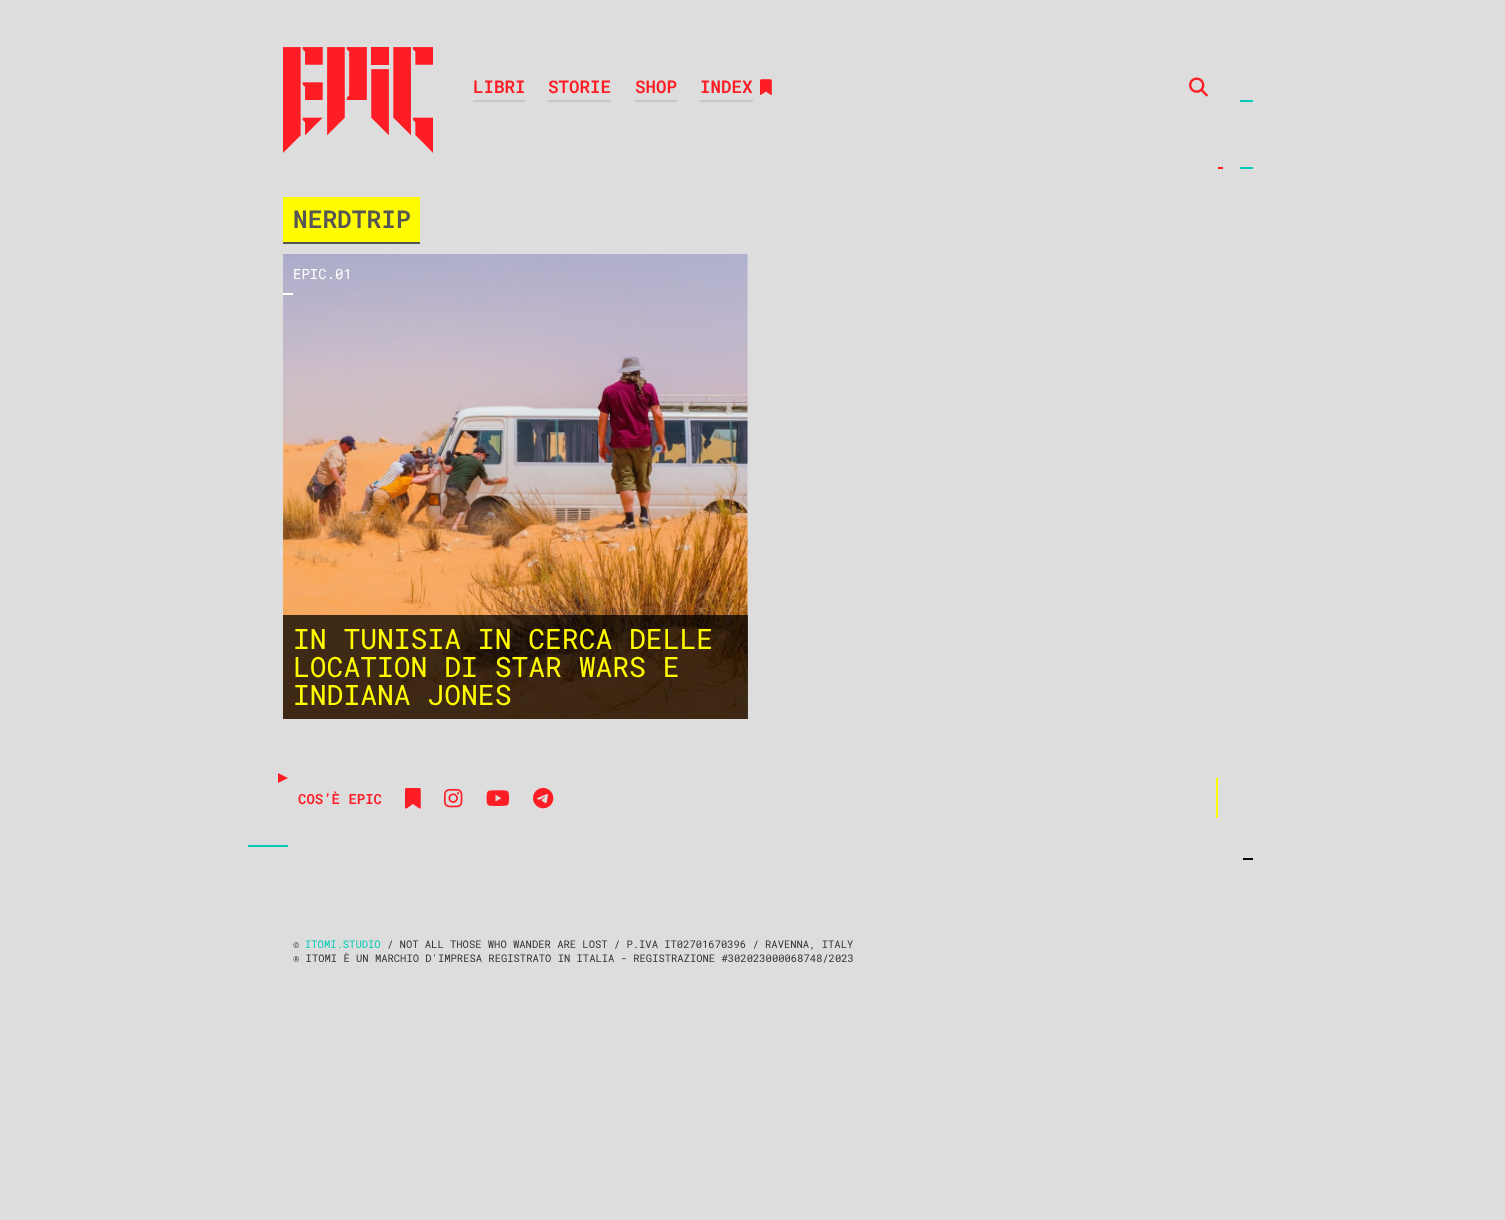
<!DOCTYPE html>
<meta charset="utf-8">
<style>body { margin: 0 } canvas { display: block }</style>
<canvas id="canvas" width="1505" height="1220"></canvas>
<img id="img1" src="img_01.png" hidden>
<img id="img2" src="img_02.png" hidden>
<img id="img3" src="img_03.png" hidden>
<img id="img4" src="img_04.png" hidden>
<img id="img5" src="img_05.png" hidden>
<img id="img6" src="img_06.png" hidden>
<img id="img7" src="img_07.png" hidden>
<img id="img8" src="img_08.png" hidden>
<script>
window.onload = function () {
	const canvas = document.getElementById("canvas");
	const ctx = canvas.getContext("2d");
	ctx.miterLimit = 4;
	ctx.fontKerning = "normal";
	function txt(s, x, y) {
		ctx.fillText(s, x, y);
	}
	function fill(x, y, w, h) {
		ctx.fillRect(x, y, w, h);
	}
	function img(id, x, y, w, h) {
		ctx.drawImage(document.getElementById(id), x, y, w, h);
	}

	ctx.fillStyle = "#DDDDDD";
	fill(0, 0, 1505, 1220);
	img("img1", 283, 47, 150, 106);
	ctx.fillStyle = "#C7C7C7";
	fill(473, 100, 52, 2);
	fill(548, 100, 63, 2);
	fill(635, 100, 42, 2);
	fill(700, 100, 53, 2);
	img("img2", 760, 79, 12, 16);
	img("img3", 1189, 77, 19, 20);
	ctx.fillStyle = "#01CCB7";
	fill(1240, 100, 13, 2);
	fill(1240, 167, 13, 2);
	ctx.fillStyle = "#FF1D25";
	fill(1218, 167, 5, 2);
	ctx.fillStyle = "#FFFB00";
	fill(283, 197, 137, 45);
	ctx.fillStyle = "#555555";
	fill(283, 242, 137, 2);
	img("img4", 283, 254, 465, 465);
	ctx.fillStyle = "#FFFFFF";
	fill(283, 293, 10, 2);
	ctx.fillStyle = "rgba(0, 0, 0, 0.75)";
	fill(283, 615, 465, 104);
	ctx.fillStyle = "#FF1D25";
	ctx.beginPath();
	ctx.moveTo(278, 783);
	ctx.lineTo(278, 773);
	ctx.lineTo(288, 778);
	ctx.closePath();
	ctx.fill();
	img("img5", 405, 788, 16, 21);
	img("img6", 444, 788, 19, 20);
	img("img7", 486, 790, 23, 16);
	img("img8", 533, 788, 21, 21);
	ctx.fillStyle = "#01CCB7";
	fill(248, 845, 40, 2);
	ctx.fillStyle = "#FFFB00";
	fill(1216, 778, 2, 40);
	ctx.fillStyle = "#000000";
	fill(1243, 858, 10, 2);
	ctx.font = "600 17.5px Roboto Mono";
	ctx.fillStyle = "#FF1D25";
	txt("LIBRI", 473, 93);
	txt("STORIE", 548, 93);
	txt("SHOP", 635, 93);
	txt("INDEX", 700, 93);
	ctx.font = "600 24.5px Roboto Mono";
	ctx.fillStyle = "#555555";
	txt("NERDTRIP", 293, 228);
	ctx.font = "14px Roboto Mono";
	ctx.fillStyle = "#FFFFFF";
	txt("EPIC.01", 293, 279);
	ctx.font = "28px Roboto Mono";
	ctx.fillStyle = "#FFFB00";
	txt("IN TUNISIA IN CERCA DELLE", 293, 649);
	txt("LOCATION DI STAR WARS E", 293, 677);
	txt("INDIANA JONES", 293, 705);
	ctx.font = "600 14px Roboto Mono";
	ctx.fillStyle = "#FF1D25";
	txt("COS’È EPIC", 298, 804);
	ctx.font = "10.5px Roboto Mono";
	ctx.fillStyle = "#333333";
	txt("©", 293, 948);
	ctx.fillStyle = "#01CCB7";
	txt("ITOMI.STUDIO", 305, 948);
	ctx.fillStyle = "#333333";
	txt("/ NOT ALL THOSE WHO WANDER ARE LOST / P.IVA IT02701670396 / RAVENNA, ITALY", 387, 948);
	txt("® ITOMI È UN MARCHIO D'IMPRESA REGISTRATO IN ITALIA - REGISTRAZIONE #302023000068748/2023", 293, 962);
};
</script>
